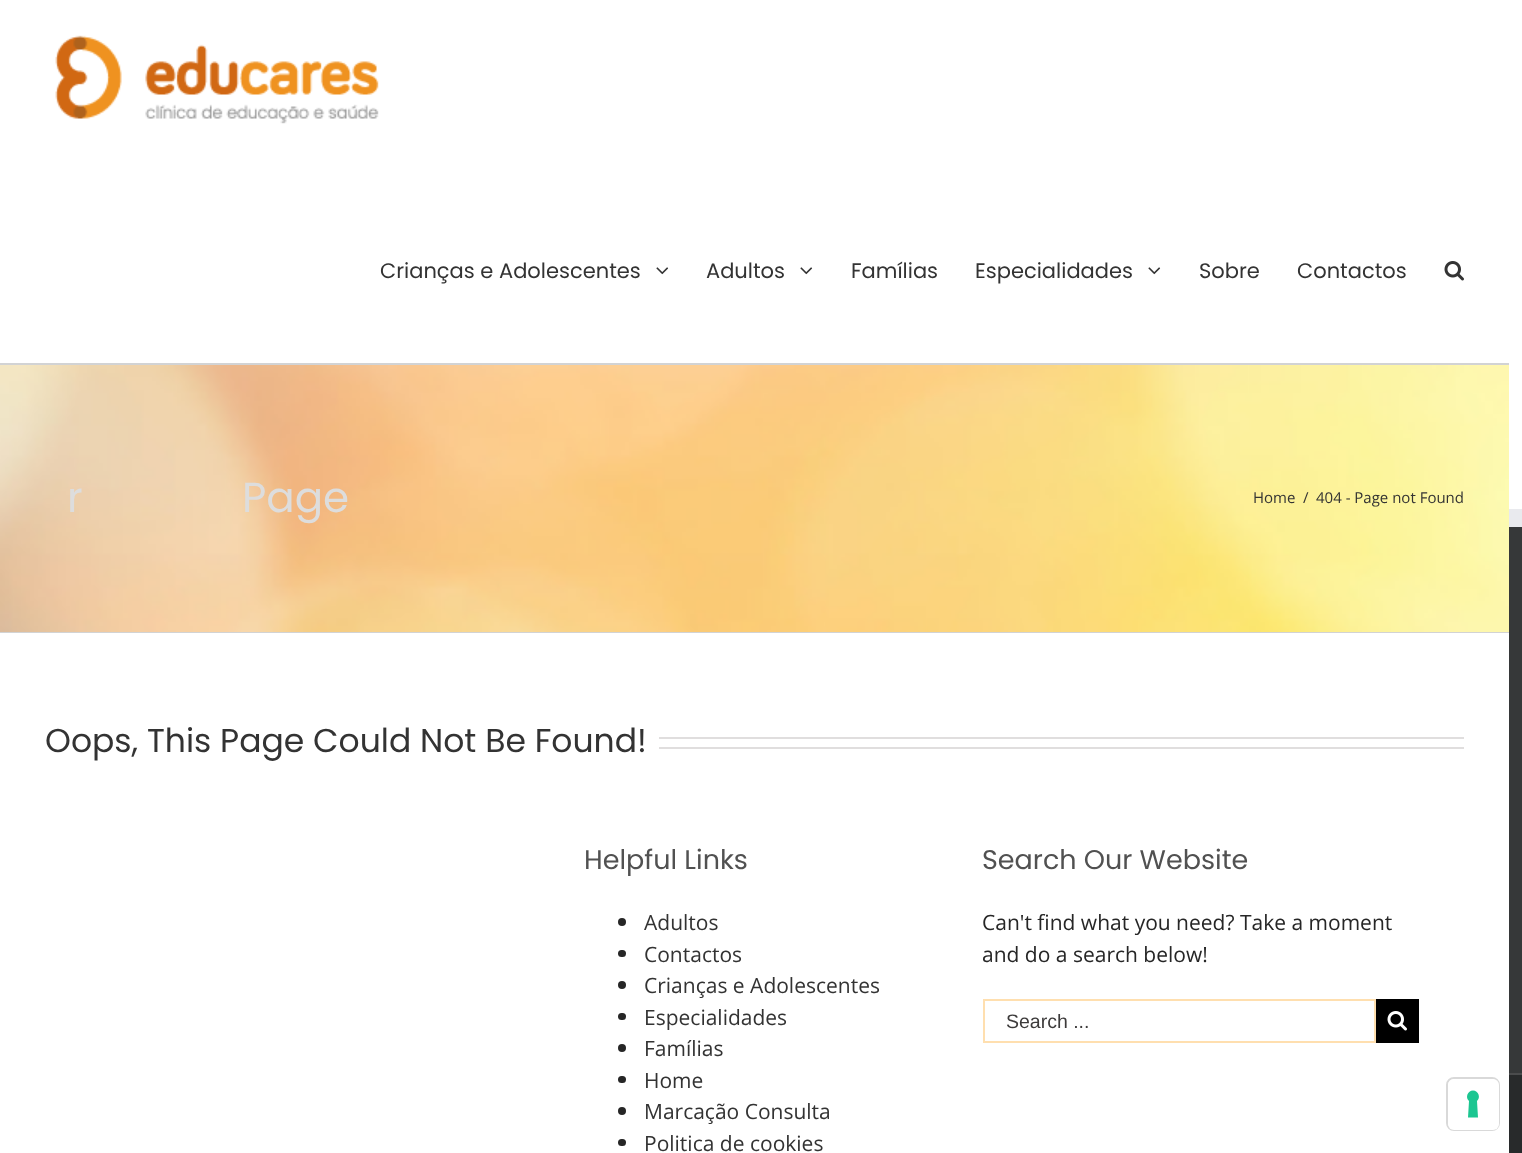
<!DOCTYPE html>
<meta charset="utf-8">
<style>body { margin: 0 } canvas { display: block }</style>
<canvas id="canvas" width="1522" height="1153"></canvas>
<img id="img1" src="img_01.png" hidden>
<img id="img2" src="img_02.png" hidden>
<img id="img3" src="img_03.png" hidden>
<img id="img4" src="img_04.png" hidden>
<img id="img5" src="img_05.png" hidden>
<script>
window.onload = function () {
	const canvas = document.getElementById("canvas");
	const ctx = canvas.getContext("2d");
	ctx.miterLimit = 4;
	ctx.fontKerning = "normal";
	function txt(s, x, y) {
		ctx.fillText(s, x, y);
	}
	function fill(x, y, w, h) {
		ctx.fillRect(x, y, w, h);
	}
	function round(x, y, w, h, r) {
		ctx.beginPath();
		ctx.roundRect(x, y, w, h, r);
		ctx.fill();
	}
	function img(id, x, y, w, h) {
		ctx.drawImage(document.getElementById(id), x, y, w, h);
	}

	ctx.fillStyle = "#FFFFFF";
	fill(0, 0, 1522, 1153);
	img("img1", 55, 35, 324, 89);
	img("img2", 656, 267, 13, 8);
	img("img2", 800, 267, 13, 8);
	img("img2", 1148, 267, 13, 8);
	img("img3", 1444, 261, 20, 20);
	img("img4", 0, 365, 1509, 267);
	ctx.fillStyle = "#D2D3D4";
	fill(0, 363, 1509, 2);
	fill(0, 632, 1509, 1);
	ctx.fillStyle = "#E0DEDE";
	fill(659, 737, 805, 2);
	fill(659, 747, 805, 2);
	ctx.fillStyle = "#262626";
	ctx.beginPath();
	ctx.arc(622, 922, 4, 0, Math.PI * 2);
	ctx.fill();
	round(618, 950, 8, 7, 3.5);
	ctx.beginPath();
	ctx.arc(622, 985, 4, 0, Math.PI * 2);
	ctx.fill();
	round(618, 1013, 8, 7, 3.5);
	ctx.beginPath();
	ctx.arc(622, 1048, 4, 0, Math.PI * 2);
	ctx.fill();
	round(618, 1076, 8, 7, 3.5);
	ctx.beginPath();
	ctx.arc(622, 1111, 4, 0, Math.PI * 2);
	ctx.fill();
	round(618, 1139, 8, 7, 3.5);
	ctx.strokeStyle = "#FFDFAF";
	ctx.lineWidth = 2;
	ctx.strokeRect(984, 1000, 391, 42);
	ctx.fillStyle = "#000000";
	fill(1376, 999, 43, 44);
	img("img5", 1387, 1011, 20, 20);
	ctx.fillStyle = "#363839";
	fill(1509, 527, 13, 546);
	ctx.fillStyle = "#E9EAEE";
	fill(1509, 509, 13, 18);
	ctx.fillStyle = "#282A2B";
	fill(1509, 1075, 13, 78);
	ctx.fillStyle = "#4B4C4D";
	fill(1509, 1073, 13, 2);
	ctx.beginPath();
	ctx.roundRect(1447, 1078, 52, 52, 7);
	ctx.strokeStyle = "#D9D9D9";
	ctx.stroke();
	ctx.fillStyle = "#FFFFFF";
	round(1448, 1079, 51, 51, 6);
	ctx.fillStyle = "#1CC691";
	ctx.beginPath();
	ctx.moveTo(1473, 1090.5);
	ctx.bezierCurveTo(1478.5, 1090.5, 1481, 1097.5, 1477, 1101);
	ctx.lineTo(1478, 1117.5);
	ctx.lineTo(1468, 1117.5);
	ctx.lineTo(1469, 1101);
	ctx.bezierCurveTo(1465, 1097.5, 1467.5, 1090.5, 1473, 1090.5);
	ctx.closePath();
	ctx.fill("evenodd");
	ctx.font = "21px Poppins";
	ctx.fillStyle = "#333333";
	txt("Crianças e Adolescentes", 380, 278);
	txt("Adultos", 706, 278);
	txt("Famílias", 851, 278);
	txt("Especialidades", 975, 278);
	txt("Sobre", 1199, 278);
	txt("Contactos", 1297, 278);
	ctx.font = "42px Poppins";
	ctx.fillStyle = "#DDDDDD";
	txt("r", 67, 512);
	txt("Page", 242, 512);
	ctx.font = "15px Open Sans";
	ctx.fillStyle = "#333333";
	txt("Home", 1253, 503);
	txt("/", 1303, 503);
	txt("404 - Page not Found", 1316, 503);
	ctx.font = "33px Poppins";
	txt("Oops, This Page Could Not Be Found!", 45, 752);
	ctx.font = "27px Poppins";
	ctx.fillStyle = "#515151";
	txt("Helpful Links", 584, 869);
	ctx.font = "21px Open Sans";
	ctx.fillStyle = "#333333";
	txt("Adultos", 644, 930);
	txt("Contactos", 644, 962);
	txt("Crianças e Adolescentes", 644, 993);
	txt("Especialidades", 644, 1025);
	txt("Famílias", 644, 1056);
	txt("Home", 644, 1088);
	txt("Marcação Consulta", 644, 1119);
	txt("Politica de cookies", 644, 1151);
	ctx.font = "27px Poppins";
	ctx.fillStyle = "#515151";
	txt("Search Our Website", 982, 869);
	ctx.font = "21px Open Sans";
	ctx.fillStyle = "#262626";
	txt("Can't find what you need? Take a moment", 982, 930);
	txt("and do a search below!", 982, 962);
	ctx.font = "19.5px Liberation Sans";
	ctx.fillStyle = "#3D3B3B";
	txt("Search ...", 1006, 1028);
};
</script>
